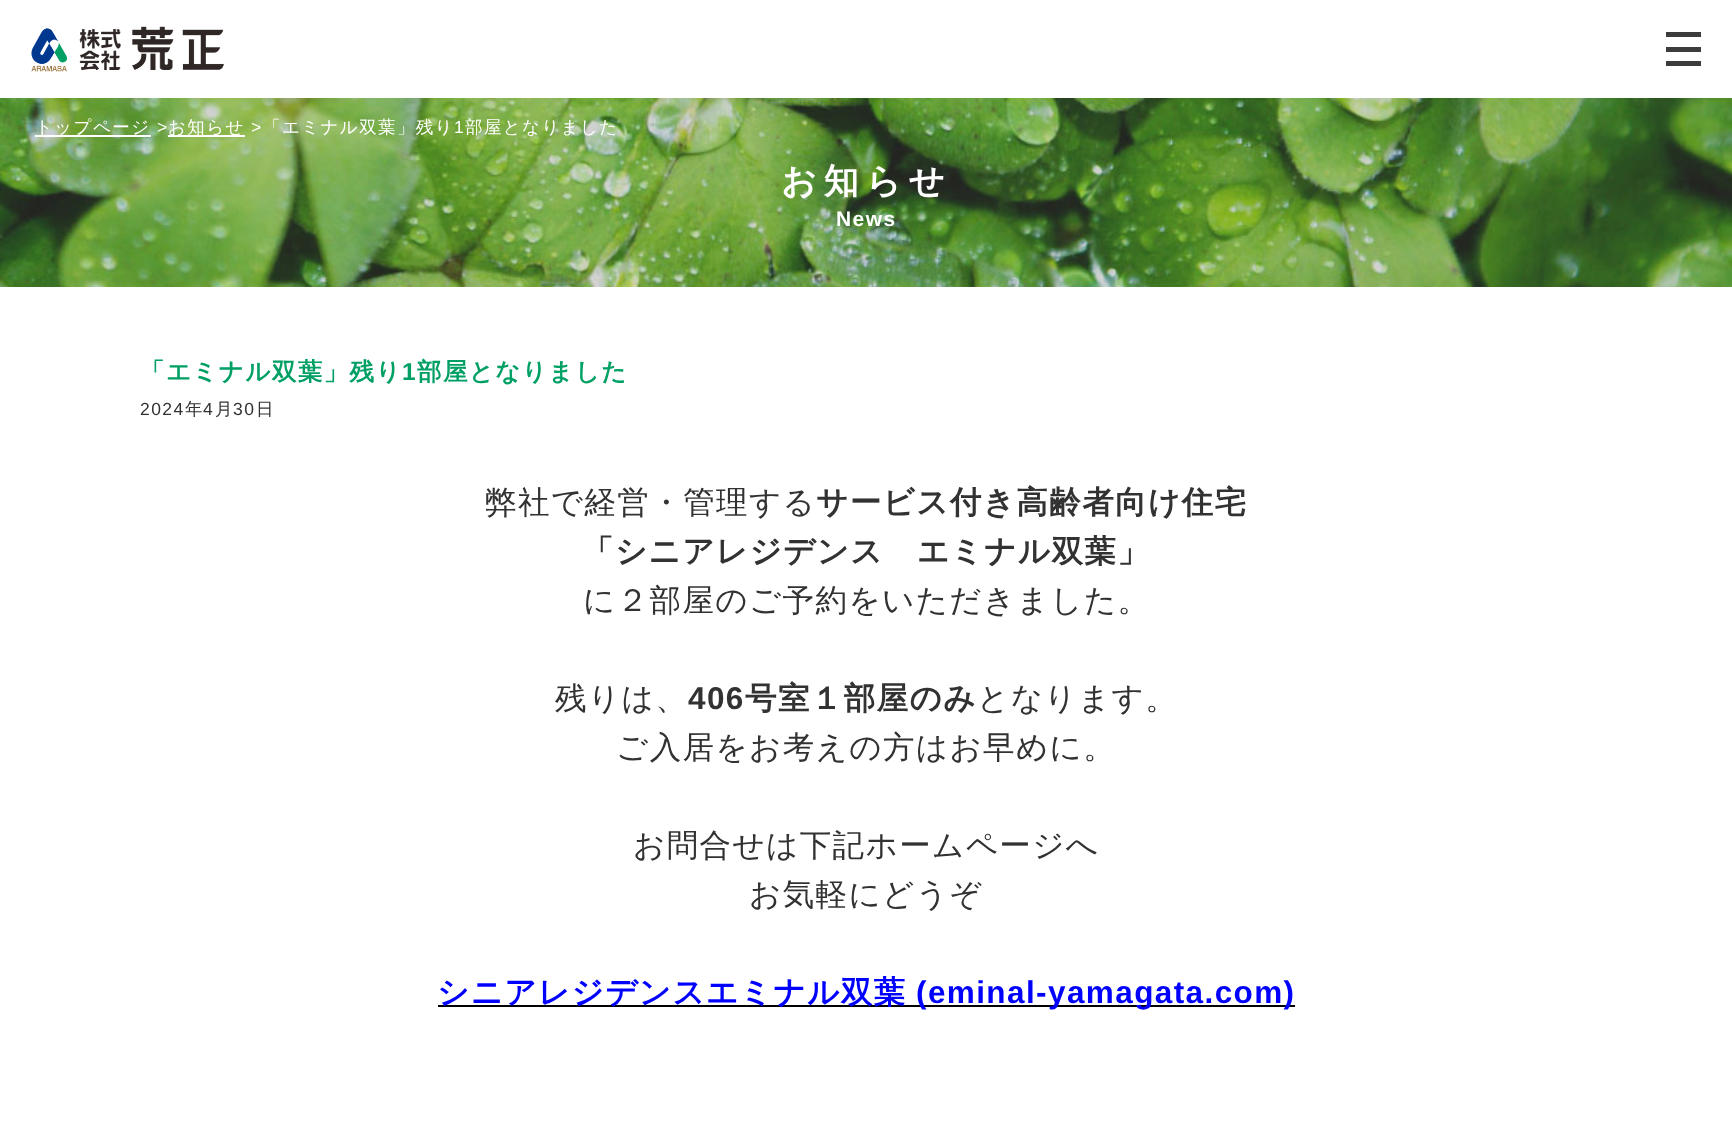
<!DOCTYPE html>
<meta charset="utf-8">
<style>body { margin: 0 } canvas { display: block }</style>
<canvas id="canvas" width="1732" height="1124"></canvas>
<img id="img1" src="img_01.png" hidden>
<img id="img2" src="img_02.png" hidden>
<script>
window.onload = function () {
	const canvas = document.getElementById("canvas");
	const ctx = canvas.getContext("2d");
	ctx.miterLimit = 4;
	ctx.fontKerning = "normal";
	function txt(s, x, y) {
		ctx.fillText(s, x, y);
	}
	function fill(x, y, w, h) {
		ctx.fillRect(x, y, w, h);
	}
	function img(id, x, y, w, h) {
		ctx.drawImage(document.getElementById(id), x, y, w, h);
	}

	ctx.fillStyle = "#FFFFFF";
	fill(0, 0, 1732, 1124);
	img("img1", 31, 26, 193, 46);
	ctx.fillStyle = "#3C3C3C";
	fill(1666, 32, 35, 5);
	fill(1666, 47, 35, 5);
	fill(1666, 61, 35, 5);
	img("img2", 0, 98, 1732, 189);
	ctx.fillStyle = "#FFFFFF";
	fill(35, 135, 116, 2);
	fill(168, 135, 77, 2);
	ctx.fillStyle = "#000000";
	fill(438, 1005, 857, 2);
	ctx.letterSpacing = "1.4px";
	ctx.font = "500 17.5px WenQuanYi Zen Hei";
	ctx.fillStyle = "#FFFFFF";
	txt("トップページ", 35, 133);
	ctx.font = "17.5px Liberation Sans";
	txt(">", 157, 133);
	ctx.font = "500 17.5px WenQuanYi Zen Hei";
	txt("お知らせ", 168, 133);
	ctx.font = "17.5px Liberation Sans";
	txt(">", 251, 133);
	ctx.font = "500 17.5px WenQuanYi Zen Hei";
	txt("「エミナル双葉」残り", 263, 133);
	ctx.font = "17.5px Liberation Sans";
	txt("1", 454, 133);
	ctx.font = "500 17.5px WenQuanYi Zen Hei";
	txt("部屋となりました", 465, 133);
	ctx.letterSpacing = "7px";
	ctx.font = "bold 35px WenQuanYi Zen Hei";
	txt("お知らせ", 781, 193);
	ctx.letterSpacing = "1.4px";
	ctx.font = "bold 21px Liberation Sans";
	txt("News", 836, 226);
	ctx.font = "bold 24.5px WenQuanYi Zen Hei";
	ctx.fillStyle = "#00A064";
	txt("「エミナル双葉」残り", 140, 380);
	ctx.font = "bold 24.5px Liberation Sans";
	txt("1", 402, 380);
	ctx.font = "bold 24.5px WenQuanYi Zen Hei";
	txt("部屋となりました", 417, 380);
	ctx.font = "17.5px Liberation Sans";
	ctx.fillStyle = "#323232";
	txt("2024", 140, 415);
	ctx.font = "500 17.5px WenQuanYi Zen Hei";
	txt("年", 185, 415);
	ctx.font = "17.5px Liberation Sans";
	txt("4", 203, 415);
	ctx.font = "500 17.5px WenQuanYi Zen Hei";
	txt("月", 215, 415);
	ctx.font = "17.5px Liberation Sans";
	txt("30", 233, 415);
	ctx.font = "500 17.5px WenQuanYi Zen Hei";
	txt("日", 256, 415);
	ctx.font = "500 31.5px WenQuanYi Zen Hei";
	txt("弊社で経営・管理する", 485, 513);
	ctx.font = "bold 31.5px WenQuanYi Zen Hei";
	txt("サービス付き高齢者向け住宅", 816, 513);
	txt("「シニアレジデンス　エミナル双葉」", 582, 562);
	ctx.font = "500 31.5px WenQuanYi Zen Hei";
	txt("に２部屋のご予約をいただきました。", 583, 611);
	txt("残りは、", 555, 709);
	ctx.font = "bold 31.5px Liberation Sans";
	txt("406", 688, 709);
	ctx.font = "bold 31.5px WenQuanYi Zen Hei";
	txt("号室１部屋のみ", 745, 709);
	ctx.font = "500 31.5px WenQuanYi Zen Hei";
	txt("となります。", 977, 709);
	txt("ご入居をお考えの方はお早めに。", 616, 758);
	txt("お問合せは下記ホームページへ", 633, 856);
	txt("お気軽にどうぞ", 749, 905);
	ctx.font = "bold 31.5px WenQuanYi Zen Hei";
	ctx.fillStyle = "#0000FF";
	txt("シニアレジデンスエミナル双葉", 437, 1003);
	ctx.font = "bold 31.5px Liberation Sans";
	txt("(eminal-yamagata.com)", 916, 1003);
};
</script>
